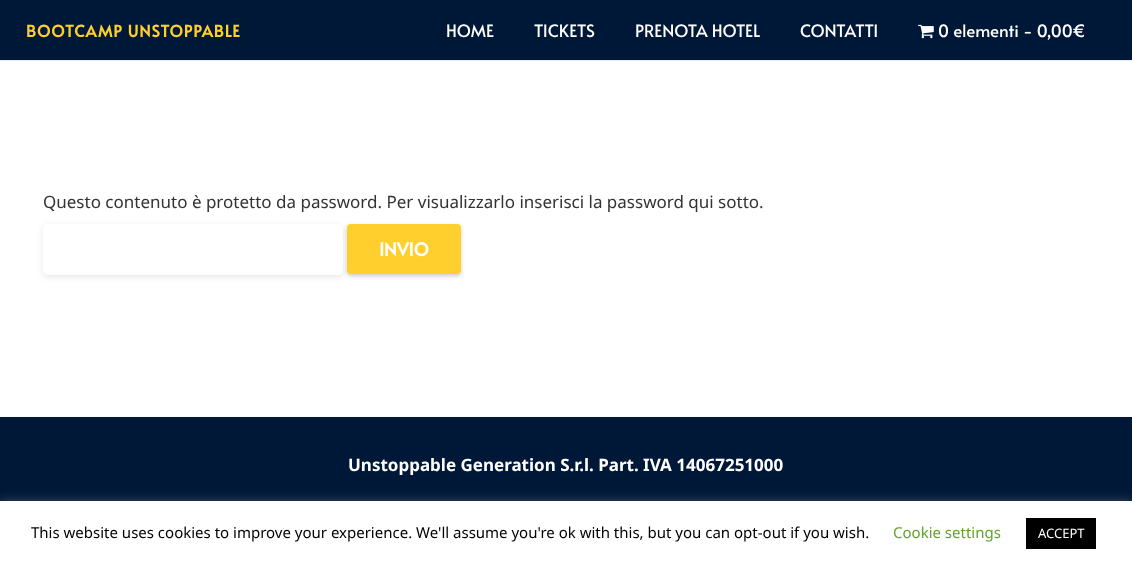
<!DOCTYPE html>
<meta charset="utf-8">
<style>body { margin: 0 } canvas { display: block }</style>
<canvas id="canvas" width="1132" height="566"></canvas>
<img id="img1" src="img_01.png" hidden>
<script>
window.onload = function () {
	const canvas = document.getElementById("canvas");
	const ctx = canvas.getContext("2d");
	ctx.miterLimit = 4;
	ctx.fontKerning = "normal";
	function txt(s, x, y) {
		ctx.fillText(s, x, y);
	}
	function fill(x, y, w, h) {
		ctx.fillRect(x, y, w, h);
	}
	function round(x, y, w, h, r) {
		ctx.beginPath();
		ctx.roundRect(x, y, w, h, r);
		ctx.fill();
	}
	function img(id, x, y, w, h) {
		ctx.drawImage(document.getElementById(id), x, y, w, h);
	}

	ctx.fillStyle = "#FFFFFF";
	fill(0, 0, 1132, 566);
	ctx.fillStyle = "#EBEBEB";
	fill(0, 60, 1132, 1);
	ctx.fillStyle = "#001838";
	fill(0, 0, 1132, 60);
	img("img1", 918, 24, 16, 15);
	ctx.fillStyle = "rgba(0, 0, 0, 0.1)";
	ctx.filter = "blur(3px)";
	ctx.beginPath();
	ctx.roundRect(43, 226, 300, 51, 5);
	ctx.fill();
	ctx.filter = "none";
	ctx.fillStyle = "#FFFFFF";
	round(43, 224, 300, 51, 5);
	ctx.fillStyle = "rgba(0, 0, 0, 0.2)";
	ctx.filter = "blur(2px)";
	ctx.beginPath();
	ctx.roundRect(347, 226, 114, 50, 4);
	ctx.fill();
	ctx.filter = "none";
	ctx.fillStyle = "#FFCF2D";
	round(347, 224, 114, 50, 4);
	ctx.fillStyle = "#001838";
	fill(0, 417, 1132, 84);
	ctx.fillStyle = "rgba(172, 171, 171, 0.3)";
	ctx.filter = "blur(5px)";
	ctx.beginPath();
	ctx.rect(0, 500, 1132, 65);
	ctx.fill();
	ctx.filter = "none";
	ctx.fillStyle = "#FFFFFF";
	fill(0, 501, 1132, 65);
	ctx.fillStyle = "#000000";
	fill(1026, 518, 70, 31);
	ctx.letterSpacing = "1px";
	ctx.font = "bold 16px Alata";
	ctx.fillStyle = "#FFCF2D";
	txt("BOOTCAMP UNSTOPPABLE", 26, 37);
	ctx.letterSpacing = "0px";
	ctx.font = "17px Alata";
	ctx.fillStyle = "#FFFFFF";
	txt("HOME", 446, 37);
	txt("TICKETS", 534, 37);
	txt("PRENOTA HOTEL", 635, 37);
	txt("CONTATTI", 800, 37);
	txt("0 elementi - 0,00€", 938, 37);
	ctx.font = "17px Noto Sans";
	ctx.fillStyle = "#333333";
	txt("Questo contenuto è protetto da password. Per visualizzarlo inserisci la password qui sotto.", 43, 208);
	ctx.font = "bold 18px Alata";
	ctx.fillStyle = "#FFFFFF";
	txt("INVIO", 379, 256);
	ctx.font = "bold 17px Noto Sans";
	txt("Unstoppable Generation S.r.l. Part. IVA 14067251000", 348, 471);
	ctx.font = "15px Noto Sans";
	ctx.fillStyle = "#000000";
	txt("This website uses cookies to improve your experience. We'll assume you're ok with this, but you can opt-out if you wish.", 31, 538);
	ctx.fillStyle = "#62A329";
	txt("Cookie settings", 893, 538);
	ctx.font = "13px Noto Sans";
	ctx.fillStyle = "#FFFFFF";
	txt("ACCEPT", 1038, 538);
};
</script>
